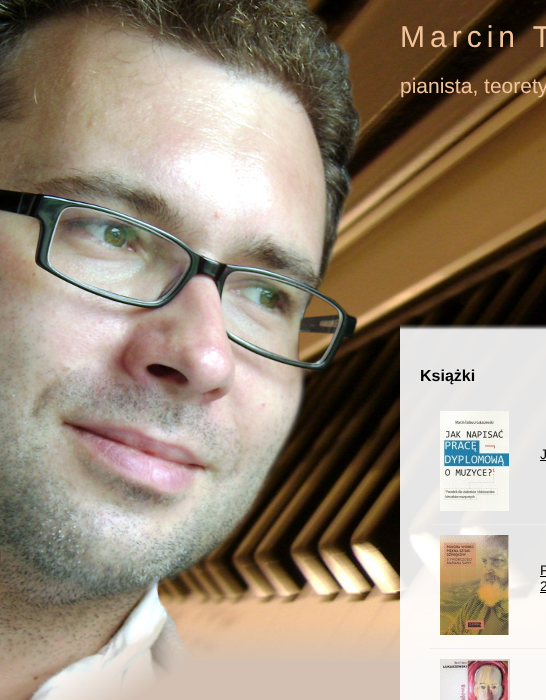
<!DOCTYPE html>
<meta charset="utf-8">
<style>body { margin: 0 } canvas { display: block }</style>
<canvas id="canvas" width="546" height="700"></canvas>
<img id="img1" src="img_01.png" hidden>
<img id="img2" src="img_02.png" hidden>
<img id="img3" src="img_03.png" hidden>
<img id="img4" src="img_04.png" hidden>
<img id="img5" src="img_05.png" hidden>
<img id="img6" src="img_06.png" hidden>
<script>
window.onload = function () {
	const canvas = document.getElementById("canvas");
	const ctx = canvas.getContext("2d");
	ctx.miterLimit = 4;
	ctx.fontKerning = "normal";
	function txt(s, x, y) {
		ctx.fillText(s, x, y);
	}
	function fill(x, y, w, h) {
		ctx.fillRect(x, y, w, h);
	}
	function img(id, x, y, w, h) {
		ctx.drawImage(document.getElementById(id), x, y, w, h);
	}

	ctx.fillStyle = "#D3C0B2";
	fill(0, 0, 546, 700);
	img("img1", 0, 0, 546, 661);
	img("img2", 0, 0, 363, 700);
	img("img3", 400, 324, 146, 7);
	ctx.fillStyle = "rgba(255, 255, 255, 0.9)";
	fill(400, 331, 146, 369);
	ctx.fillStyle = "#EEEEEE";
	fill(430, 524, 116, 1);
	img("img4", 440, 411, 69, 100);
	ctx.fillStyle = "#000000";
	fill(540, 460, 6, 1);
	ctx.fillStyle = "#EEEEEE";
	fill(430, 648, 116, 1);
	img("img5", 440, 535, 69, 100);
	ctx.fillStyle = "#000000";
	fill(540, 576, 6, 1);
	fill(540, 592, 6, 1);
	img("img6", 440, 659, 70, 41);
	ctx.letterSpacing = "5px";
	ctx.font = "30px Liberation Sans";
	ctx.fillStyle = "#F1C49B";
	txt("Marcin T", 400, 47);
	ctx.letterSpacing = "0px";
	ctx.font = "21px Liberation Sans";
	txt("pianista, teorety", 400, 93);
	ctx.font = "bold 16px Liberation Sans";
	ctx.fillStyle = "#000000";
	txt("Książki", 420, 381);
	ctx.font = "14px Liberation Sans";
	txt("J", 540, 459);
	txt("P", 540, 575);
	txt("2", 540, 591);
};
</script>
